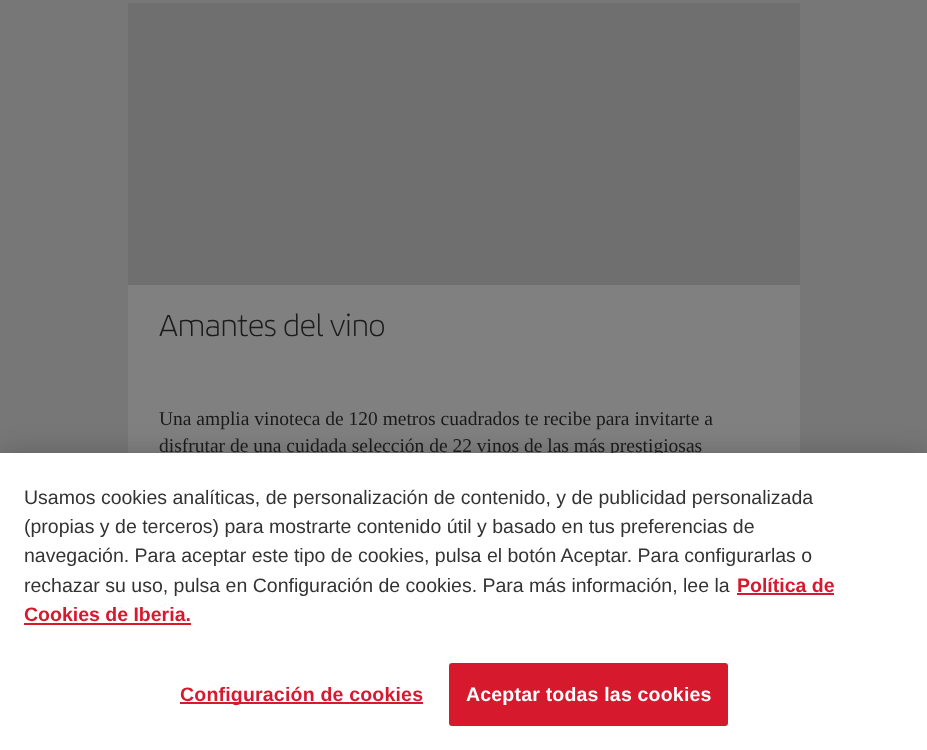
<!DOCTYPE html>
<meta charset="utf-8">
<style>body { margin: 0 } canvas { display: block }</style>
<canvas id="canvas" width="927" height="750"></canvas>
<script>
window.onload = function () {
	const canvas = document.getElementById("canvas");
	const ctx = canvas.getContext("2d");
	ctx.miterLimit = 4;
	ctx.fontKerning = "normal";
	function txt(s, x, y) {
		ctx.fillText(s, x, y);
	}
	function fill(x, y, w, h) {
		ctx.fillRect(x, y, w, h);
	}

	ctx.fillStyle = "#777777";
	fill(0, 0, 927, 750);
	ctx.fillStyle = "#808080";
	fill(128, 285, 672, 168);
	ctx.fillStyle = "#6F6F6F";
	fill(128, 3, 672, 282);
	ctx.fillStyle = "rgba(0, 0, 0, 0.2)";
	ctx.filter = "blur(13.5px)";
	ctx.beginPath();
	ctx.rect(0, 453, 927, 297);
	ctx.fill();
	ctx.filter = "none";
	ctx.font = "33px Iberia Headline";
	ctx.fillStyle = "#1A1A1A";
	txt("Amantes del vino", 159, 336);
	ctx.font = "19.5px Liberation Serif";
	txt("Una amplia vinoteca de 120 metros cuadrados te recibe para invitarte a", 159, 425);
	txt("disfrutar de una cuidada selección de 22 vinos de las más prestigiosas", 159, 452);
	ctx.fillStyle = "#FFFFFF";
	fill(0, 453, 927, 297);
	ctx.font = "19.5px Liberation Sans";
	ctx.fillStyle = "#333333";
	txt("Usamos cookies analíticas, de personalización de contenido, y de publicidad personalizada", 24, 504);
	txt("(propias y de terceros) para mostrarte contenido útil y basado en tus preferencias de", 24, 533);
	txt("navegación. Para aceptar este tipo de cookies, pulsa el botón Aceptar. Para configurarlas o", 24, 562);
	txt("rechazar su uso, pulsa en Configuración de cookies. Para más información, lee la", 24, 592);
	ctx.font = "bold 19.5px Liberation Sans";
	ctx.fillStyle = "#D7192D";
	txt("Política de", 737, 592);
	fill(737, 593, 97, 2);
	txt("Cookies de Iberia.", 24, 621);
	fill(24, 623, 167, 2);
	fill(180, 702, 243, 2);
	ctx.letterSpacing = "0.2px";
	txt("Configuración de cookies", 180, 701);
	ctx.beginPath();
	ctx.roundRect(450, 664, 277, 61, 2);
	ctx.fill();
	ctx.strokeStyle = "#D7192D";
	ctx.lineWidth = 2;
	ctx.stroke();
	ctx.fillStyle = "#FFFFFF";
	txt("Aceptar todas las cookies", 466, 701);
};
</script>
